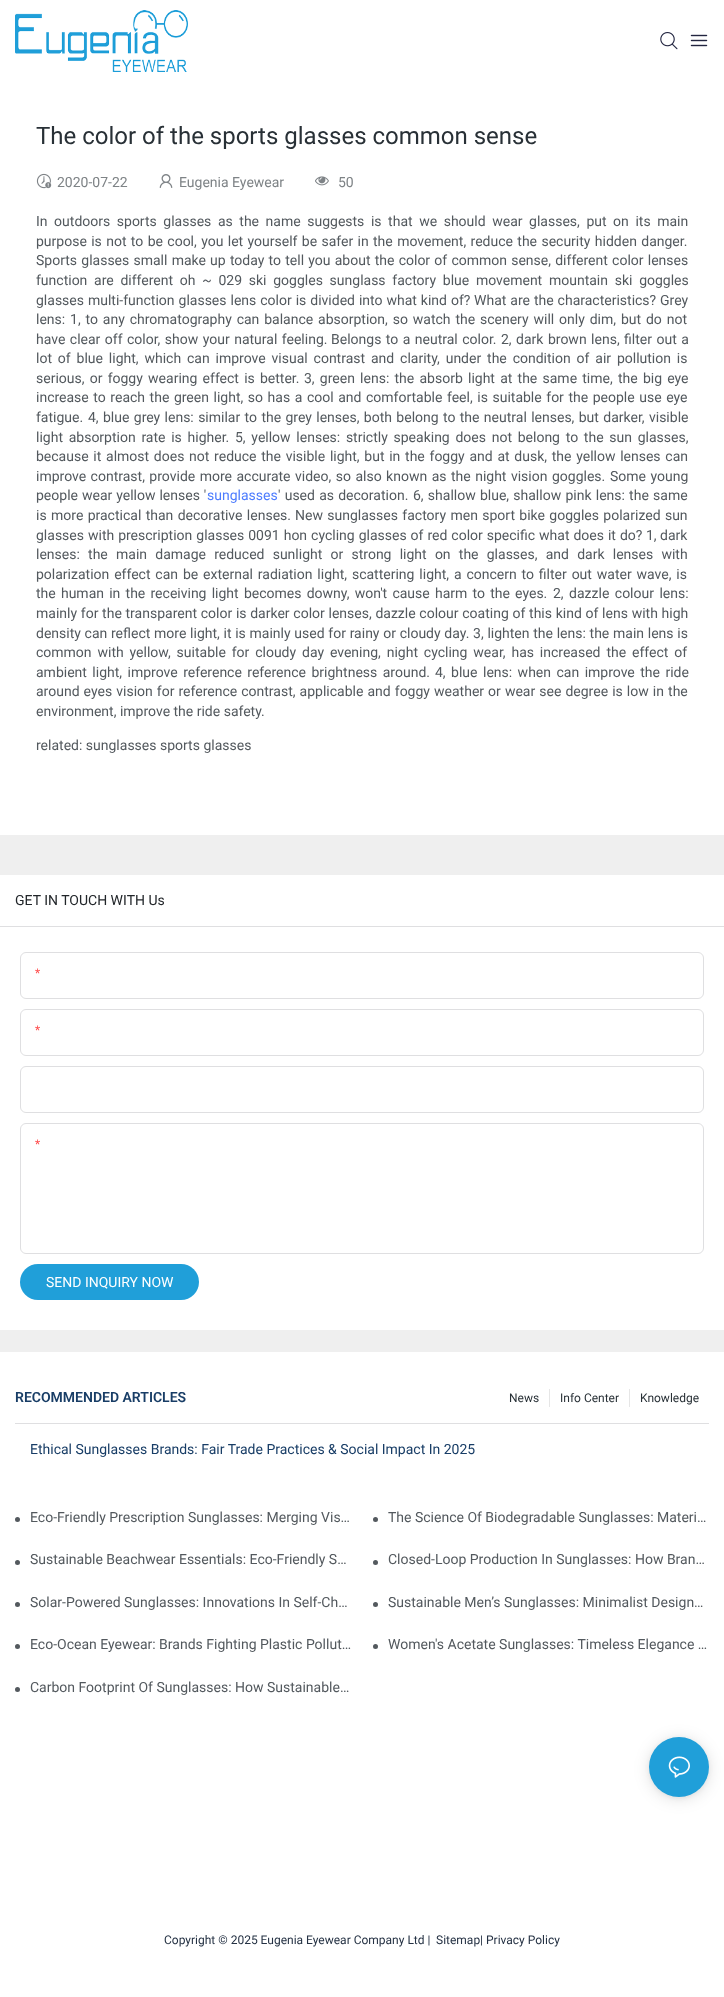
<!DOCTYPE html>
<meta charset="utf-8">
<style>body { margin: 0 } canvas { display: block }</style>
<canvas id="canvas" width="724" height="1997"></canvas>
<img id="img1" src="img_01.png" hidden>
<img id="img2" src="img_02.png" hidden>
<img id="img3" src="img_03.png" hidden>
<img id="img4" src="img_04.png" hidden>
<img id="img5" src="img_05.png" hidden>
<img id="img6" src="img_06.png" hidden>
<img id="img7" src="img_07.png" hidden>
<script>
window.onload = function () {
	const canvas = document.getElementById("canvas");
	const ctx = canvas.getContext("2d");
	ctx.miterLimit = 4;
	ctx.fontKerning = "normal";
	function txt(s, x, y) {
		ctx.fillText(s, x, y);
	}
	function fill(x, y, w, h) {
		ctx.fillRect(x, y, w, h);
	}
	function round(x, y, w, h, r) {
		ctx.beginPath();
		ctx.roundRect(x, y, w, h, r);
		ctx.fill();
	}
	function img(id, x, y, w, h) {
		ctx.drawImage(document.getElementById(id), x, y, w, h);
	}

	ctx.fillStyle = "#FFFFFF";
	fill(0, 0, 724, 1997);
	img("img1", 15, 10, 173, 62);
	img("img2", 660, 32, 18, 18);
	img("img3", 690, 34, 18, 13);
	ctx.fillStyle = "#EFEFEF";
	fill(0, 835, 724, 517);
	img("img4", 36, 173, 16, 16);
	img("img5", 159, 174, 14, 14);
	img("img6", 315, 176, 14, 10);
	ctx.fillStyle = "#FFFFFF";
	fill(0, 875, 724, 455);
	ctx.fillStyle = "#DFDFE1";
	fill(0, 926, 724, 1);
	ctx.beginPath();
	ctx.roundRect(20.5, 952.5, 683, 46, 5.5);
	ctx.strokeStyle = "#DFDFE1";
	ctx.stroke();
	ctx.beginPath();
	ctx.roundRect(20.5, 1009.5, 683, 46, 5.5);
	ctx.stroke();
	ctx.beginPath();
	ctx.roundRect(20.5, 1066.5, 683, 46, 5.5);
	ctx.stroke();
	ctx.beginPath();
	ctx.roundRect(20.5, 1123.5, 683, 130, 5.5);
	ctx.stroke();
	ctx.fillStyle = "#209FD9";
	round(20, 1264, 179, 36, 18);
	ctx.fillStyle = "#DFDFE1";
	fill(15, 1423, 694, 1);
	ctx.fillStyle = "#E6E6E6";
	fill(549, 1389, 1, 18);
	fill(629, 1389, 1, 18);
	ctx.fillStyle = "#5C5C5C";
	ctx.beginPath();
	ctx.arc(17.5, 1519.5, 1.5, 0, Math.PI * 2);
	ctx.fill();
	ctx.strokeStyle = "#53595E";
	ctx.lineWidth = 2;
	ctx.stroke();
	ctx.beginPath();
	ctx.arc(375.5, 1519.5, 1.5, 0, Math.PI * 2);
	ctx.fill();
	ctx.stroke();
	ctx.beginPath();
	ctx.arc(17.5, 1562.5, 1.5, 0, Math.PI * 2);
	ctx.fill();
	ctx.stroke();
	ctx.beginPath();
	ctx.arc(375.5, 1562.5, 1.5, 0, Math.PI * 2);
	ctx.fill();
	ctx.stroke();
	ctx.beginPath();
	ctx.arc(17.5, 1604.5, 1.5, 0, Math.PI * 2);
	ctx.fill();
	ctx.stroke();
	ctx.beginPath();
	ctx.arc(375.5, 1604.5, 1.5, 0, Math.PI * 2);
	ctx.fill();
	ctx.stroke();
	ctx.beginPath();
	ctx.arc(17.5, 1646.5, 1.5, 0, Math.PI * 2);
	ctx.fill();
	ctx.stroke();
	ctx.beginPath();
	ctx.arc(375.5, 1646.5, 1.5, 0, Math.PI * 2);
	ctx.fill();
	ctx.stroke();
	ctx.beginPath();
	ctx.arc(17.5, 1689.5, 1.5, 0, Math.PI * 2);
	ctx.fill();
	ctx.stroke();
	ctx.fillStyle = "rgba(0, 0, 0, 0.12)";
	ctx.filter = "blur(8px)";
	ctx.beginPath();
	ctx.roundRect(649, 1739, 60, 60, 30);
	ctx.fill();
	ctx.filter = "none";
	ctx.fillStyle = "rgba(0, 0, 0, 0.06)";
	ctx.filter = "blur(2px)";
	ctx.beginPath();
	ctx.roundRect(649, 1738, 60, 60, 30);
	ctx.fill();
	ctx.filter = "none";
	ctx.fillStyle = "#209FD9";
	ctx.beginPath();
	ctx.arc(679, 1767, 30, 0, Math.PI * 2);
	ctx.fill();
	img("img7", 668, 1756, 22, 22);
	ctx.font = "24px Roboto";
	ctx.fillStyle = "#283036";
	txt("The color of the sports glasses common sense", 36, 144);
	ctx.font = "14px Roboto";
	ctx.fillStyle = "#7E8386";
	txt("2020-07-22", 57, 187);
	txt("Eugenia Eyewear", 179, 187);
	txt("50", 338, 187);
	ctx.wordSpacing = "3.1px";
	ctx.fillStyle = "#53595E";
	txt("In outdoors sports glasses as the name suggests is that we should wear glasses, put on its main", 36, 226);
	ctx.wordSpacing = "0.9px";
	txt("purpose is not to be cool, you let yourself be safer in the movement, reduce the security hidden danger.", 36, 246);
	ctx.wordSpacing = "0.75px";
	txt("Sports glasses small make up today to tell you about the color of common sense, different color lenses", 36, 265);
	ctx.wordSpacing = "3.25px";
	txt("function are different oh ~ 029 ski goggles sunglass factory blue movement mountain ski goggles", 36, 285);
	ctx.wordSpacing = "0.5px";
	txt("glasses multi-function glasses lens color is divided into what kind of?", 36, 305);
	txt("What are the characteristics?", 474, 305);
	ctx.wordSpacing = "0px";
	txt("Grey", 660, 305);
	ctx.wordSpacing = "1.4px";
	txt("lens: 1, to any chromatography can balance absorption, so watch the scenery will only dim, but do not", 36, 324);
	ctx.wordSpacing = "1px";
	txt("have clear off color, show your natural feeling.", 36, 344);
	txt("Belongs to a neutral color.", 331, 344);
	txt("2, dark brown lens, filter out a", 501, 344);
	ctx.wordSpacing = "2.4px";
	txt("lot of blue light, which can improve visual contrast and clarity, under the condition of air pollution is", 36, 363);
	ctx.wordSpacing = "1.75px";
	txt("serious, or foggy wearing effect is better.", 36, 383);
	txt("3, green lens: the absorb light at the same time, the big eye", 304, 383);
	ctx.wordSpacing = "1.1px";
	txt("increase to reach the green light, so has a cool and comfortable feel, is suitable for the people use eye", 36, 402);
	ctx.wordSpacing = "0px";
	txt("fatigue.", 36, 422);
	ctx.wordSpacing = "0.9px";
	txt("4, blue grey lens: similar to the grey lenses, both belong to the neutral lenses, but darker, visible", 88, 422);
	ctx.wordSpacing = "2.25px";
	txt("light absorption rate is higher.", 36, 442);
	txt("5, yellow lenses: strictly speaking does not belong to the sun glasses,", 235, 442);
	ctx.wordSpacing = "1.25px";
	txt("because it almost does not reduce the visible light, but in the foggy and at dusk, the yellow lenses can", 36, 461);
	ctx.wordSpacing = "1px";
	txt("improve contrast, provide more accurate video, so also known as the night vision goggles.", 36, 481);
	txt("Some young", 610, 481);
	ctx.wordSpacing = "0.5px";
	txt("people wear yellow lenses '", 36, 500);
	ctx.wordSpacing = "0px";
	ctx.fillStyle = "#4D7CFE";
	txt("sunglasses", 207, 500);
	ctx.wordSpacing = "0.75px";
	ctx.fillStyle = "#53595E";
	txt("' used as decoration.", 278, 500);
	txt("6, shallow blue, shallow pink lens: the same", 413, 500);
	ctx.wordSpacing = "0.9px";
	txt("is more practical than decorative lenses.", 36, 520);
	txt("New sunglasses factory men sport bike goggles polarized sun", 295, 520);
	ctx.wordSpacing = "0.5px";
	txt("glasses with prescription glasses 0091 hon cycling glasses of red color specific what does it do?", 36, 540);
	ctx.wordSpacing = "0px";
	txt("1, dark", 646, 540);
	ctx.wordSpacing = "4.75px";
	txt("lenses: the main damage reduced sunlight or strong light on the glasses, and dark lenses with", 36, 559);
	ctx.wordSpacing = "1.4px";
	txt("polarization effect can be external radiation light, scattering light, a concern to filter out water wave, is", 36, 579);
	ctx.wordSpacing = "1.75px";
	txt("the human in the receiving light becomes downy, won't cause harm to the eyes.", 36, 598);
	ctx.wordSpacing = "2px";
	txt("2, dazzle colour lens:", 553, 598);
	ctx.wordSpacing = "0.25px";
	txt("mainly for the transparent color is darker color lenses, dazzle colour coating of this kind of lens with high", 36, 618);
	txt("density can reflect more light, it is mainly used for rainy or cloudy day. 3, lighten the lens: the main lens is", 36, 638);
	ctx.wordSpacing = "2.4px";
	txt("common with yellow, suitable for cloudy day evening, night cycling wear, has increased the effect of", 36, 657);
	ctx.wordSpacing = "2px";
	txt("ambient light, improve reference reference brightness around.", 36, 677);
	txt("4, blue lens: when can improve the ride", 435, 677);
	ctx.wordSpacing = "0.6px";
	txt("around eyes vision for reference contrast, applicable and foggy weather or wear see degree is low in the", 36, 696);
	ctx.wordSpacing = "0px";
	txt("environment, improve the ride safety.", 36, 716);
	txt("related: sunglasses sports glasses", 36, 750);
	ctx.fillStyle = "#212529";
	txt("GET IN TOUCH WITH Us", 15, 905);
	ctx.font = "12px Roboto";
	ctx.fillStyle = "#FF4D4D";
	txt("*", 35, 977);
	txt("*", 35, 1034);
	txt("*", 35, 1148);
	ctx.font = "14px Roboto";
	ctx.fillStyle = "#FFFFFF";
	txt("SEND INQUIRY NOW", 46, 1287);
	ctx.font = "600 14px Roboto";
	ctx.fillStyle = "#183D66";
	txt("RECOMMENDED ARTICLES", 15, 1402);
	ctx.font = "12px Roboto";
	ctx.fillStyle = "#283036";
	txt("News", 509, 1402);
	txt("Info Center", 560, 1402);
	txt("Knowledge", 640, 1402);
	ctx.font = "14px Roboto";
	ctx.fillStyle = "#183D66";
	txt("Ethical Sunglasses Brands: Fair Trade Practices & Social Impact In 2025", 30, 1454);
	ctx.fillStyle = "#53595E";
	txt("Eco-Friendly Prescription Sunglasses: Merging Vis…", 30, 1522);
	txt("The Science Of Biodegradable Sunglasses: Materi…", 388, 1522);
	txt("Sustainable Beachwear Essentials: Eco-Friendly S…", 30, 1564);
	txt("Closed-Loop Production In Sunglasses: How Bran…", 388, 1564);
	txt("Solar-Powered Sunglasses: Innovations In Self-Ch…", 30, 1607);
	txt("Sustainable Men’s Sunglasses: Minimalist Design…", 388, 1607);
	txt("Eco-Ocean Eyewear: Brands Fighting Plastic Pollut…", 30, 1649);
	txt("Women's Acetate Sunglasses: Timeless Elegance …", 388, 1649);
	txt("Carbon Footprint Of Sunglasses: How Sustainable…", 30, 1692);
	ctx.font = "12px Roboto";
	ctx.fillStyle = "#253244";
	txt("Copyright © 2025 Eugenia Eyewear Company Ltd |", 164, 1944);
	txt("Sitemap| Privacy Policy", 436, 1944);
};
</script>
